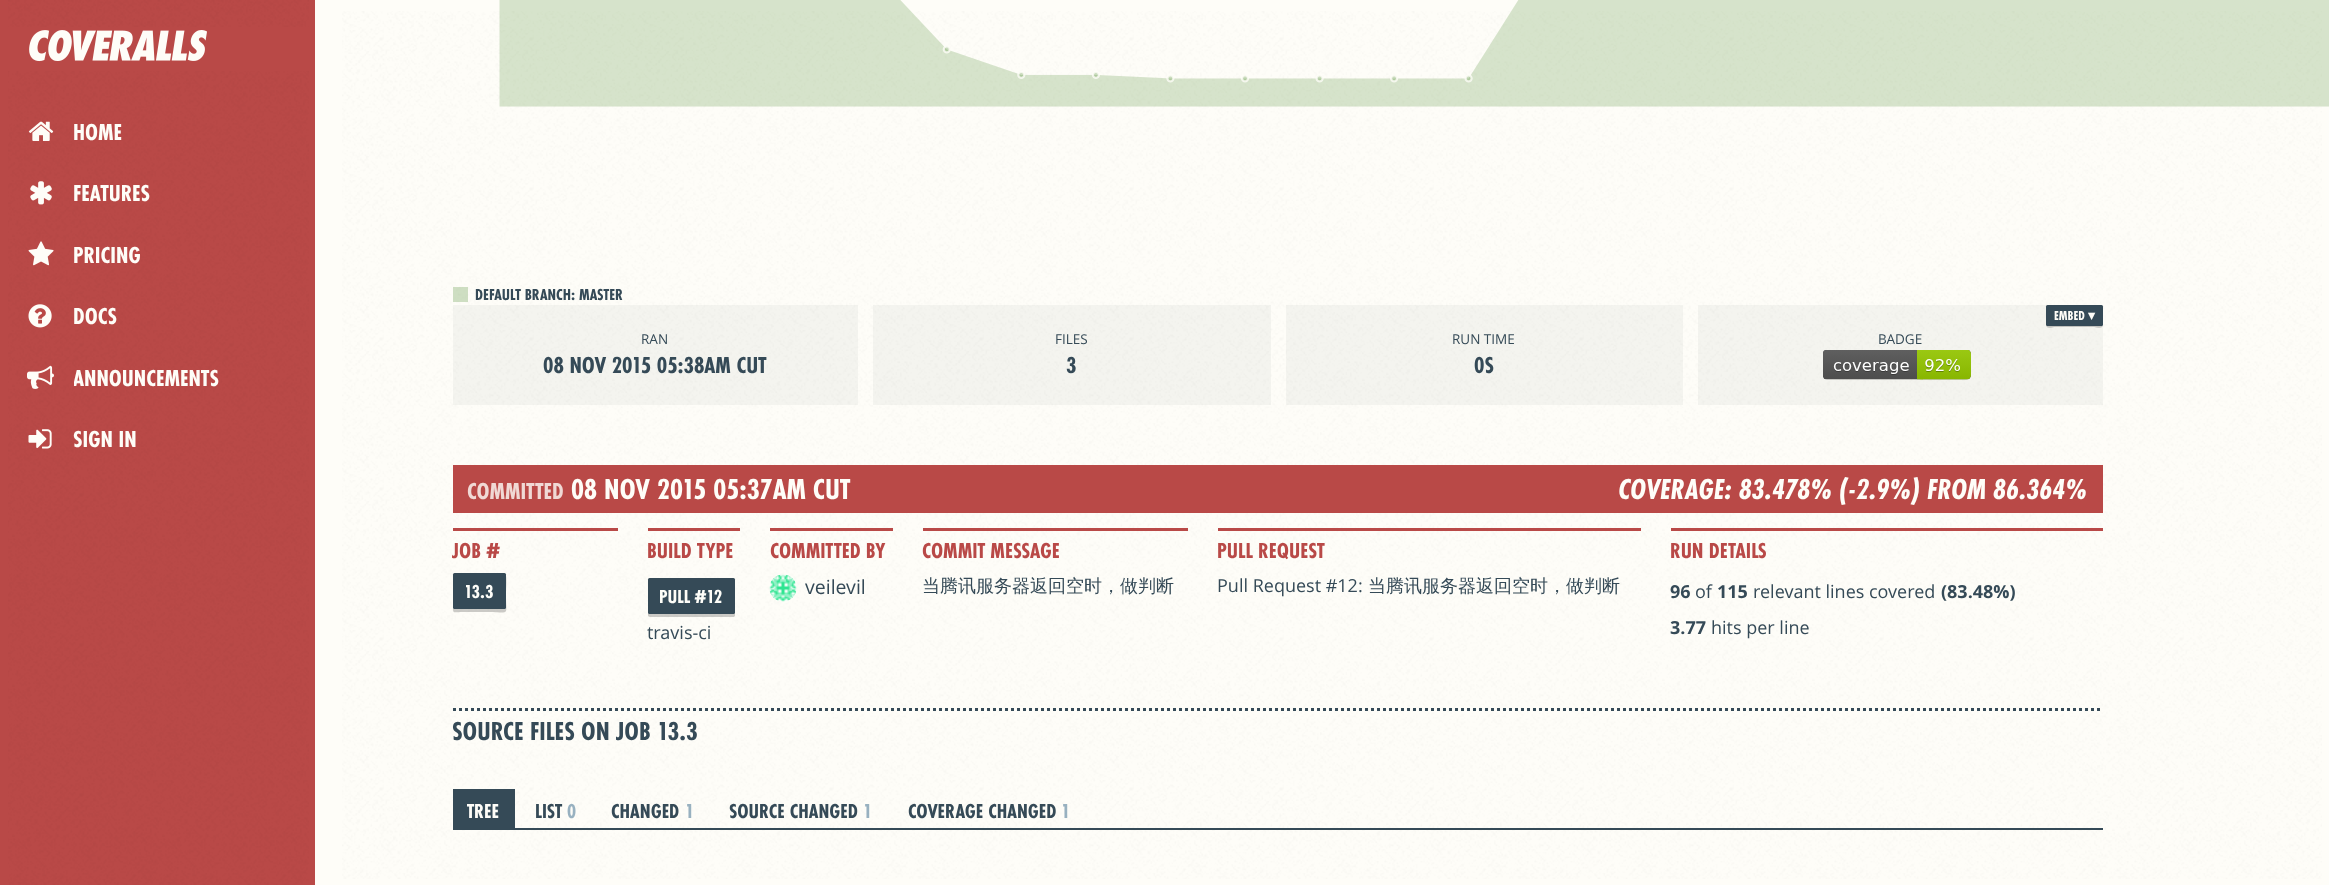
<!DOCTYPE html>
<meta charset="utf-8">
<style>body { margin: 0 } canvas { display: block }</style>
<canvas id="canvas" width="2329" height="885"></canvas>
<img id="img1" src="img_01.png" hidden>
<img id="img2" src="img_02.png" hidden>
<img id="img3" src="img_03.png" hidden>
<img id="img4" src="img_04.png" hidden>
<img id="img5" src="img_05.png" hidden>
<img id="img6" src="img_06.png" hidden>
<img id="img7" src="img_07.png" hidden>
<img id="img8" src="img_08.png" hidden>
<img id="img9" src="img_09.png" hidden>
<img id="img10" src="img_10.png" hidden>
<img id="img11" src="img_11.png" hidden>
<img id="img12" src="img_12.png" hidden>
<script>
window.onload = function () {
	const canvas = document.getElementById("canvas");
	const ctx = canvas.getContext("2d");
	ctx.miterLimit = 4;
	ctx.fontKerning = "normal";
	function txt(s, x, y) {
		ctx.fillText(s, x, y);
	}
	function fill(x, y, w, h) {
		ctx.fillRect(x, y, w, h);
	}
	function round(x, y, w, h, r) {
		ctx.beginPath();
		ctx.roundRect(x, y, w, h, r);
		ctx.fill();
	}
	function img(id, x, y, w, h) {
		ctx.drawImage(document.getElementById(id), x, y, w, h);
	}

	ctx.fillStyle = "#FEFDF8";
	fill(0, 0, 2329, 885);
	img("img1", 342, 11, 1980, 868);
	ctx.fillStyle = "#B94947";
	fill(0, 0, 315, 885);
	img("img2", 8, 0, 301, 885);
	fill(8, 27, 301, 44);
	img("img3", 29, 30, 178, 32);
	img("img4", 28, 121, 26, 20);
	img("img5", 30, 181, 22, 24);
	img("img6", 28, 241, 26, 25);
	img("img7", 28, 304, 24, 24);
	img("img8", 27, 365, 27, 24);
	img("img9", 28, 429, 24, 20);
	img("img10", 499, 0, 1830, 107);
	ctx.fillStyle = "rgba(95, 151, 68, 0.3)";
	fill(453, 287, 15, 15);
	ctx.fillStyle = "rgba(53, 74, 87, 0.05)";
	fill(1698, 305, 405, 100);
	ctx.fillStyle = "rgba(0, 0, 0, 0.2)";
	ctx.beginPath();
	ctx.moveTo(2046, 324);
	ctx.bezierCurveTo(2046, 330, 2051, 327, 2056, 327);
	ctx.lineTo(2092, 327);
	ctx.bezierCurveTo(2098, 327, 2103, 330, 2103, 324);
	ctx.bezierCurveTo(2103, 325, 2102, 326, 2102, 326);
	ctx.lineTo(2048, 326);
	ctx.bezierCurveTo(2047, 326, 2046, 325, 2046, 324);
	ctx.closePath();
	ctx.fill();
	ctx.fillStyle = "#354A57";
	round(2046, 305, 57, 21, 1.5);
	img("img11", 1823, 350, 148, 30);
	ctx.fillStyle = "rgba(53, 74, 87, 0.05)";
	fill(453, 305, 405, 100);
	fill(873, 305, 398, 100);
	fill(1286, 305, 397, 100);
	ctx.fillStyle = "#B94947";
	fill(453, 465, 1650, 48);
	fill(453, 528, 165, 3);
	ctx.fillStyle = "rgba(0, 0, 0, 0.2)";
	ctx.beginPath();
	ctx.moveTo(453, 608);
	ctx.bezierCurveTo(453, 614, 454, 612, 463, 612);
	ctx.lineTo(488, 612);
	ctx.bezierCurveTo(511, 612, 506, 617, 506, 594);
	ctx.bezierCurveTo(506, 591, 507, 578, 506, 576);
	ctx.lineTo(506, 608);
	ctx.bezierCurveTo(506, 608, 505, 609, 504, 609);
	ctx.lineTo(454, 609);
	ctx.bezierCurveTo(454, 609, 453, 608, 453, 608);
	ctx.closePath();
	ctx.fill();
	ctx.fillStyle = "#354A57";
	round(453, 573, 53, 36, 1.5);
	ctx.fillStyle = "#B94947";
	fill(648, 528, 92, 3);
	ctx.fillStyle = "rgba(0, 0, 0, 0.2)";
	ctx.beginPath();
	ctx.moveTo(648, 612);
	ctx.lineTo(648, 616);
	ctx.bezierCurveTo(648, 616, 649, 617, 650, 617);
	ctx.lineTo(734, 617);
	ctx.bezierCurveTo(734, 617, 735, 616, 735, 616);
	ctx.lineTo(735, 612);
	ctx.bezierCurveTo(735, 613, 734, 614, 734, 614);
	ctx.lineTo(650, 614);
	ctx.bezierCurveTo(649, 614, 648, 613, 648, 612);
	ctx.closePath();
	ctx.fill();
	ctx.fillStyle = "#354A57";
	round(648, 578, 87, 36, 1.5);
	ctx.fillStyle = "#B94947";
	fill(770, 528, 123, 3);
	img("img12", 769, 574, 28, 28);
	fill(923, 528, 265, 3);
	fill(1218, 528, 423, 3);
	fill(1671, 528, 432, 3);
	ctx.beginPath();
	ctx.moveTo(453, 709.5);
	ctx.lineTo(2103, 709.5);
	ctx.strokeStyle = "#354A57";
	ctx.lineWidth = 3;
	ctx.setLineDash([3, 3]);
	ctx.stroke();
	ctx.fillStyle = "#354A57";
	fill(453, 828, 1650, 2);
	fill(453, 789, 62, 39);
	ctx.font = "bold 24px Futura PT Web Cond";
	ctx.fillStyle = "#FEFDF8";
	txt("HOME", 73, 140);
	txt("FEATURES", 73, 201);
	txt("PRICING", 73, 263);
	txt("DOCS", 73, 324);
	ctx.save();
	ctx.beginPath();
	ctx.rect(74, 362, 145, 31);
	ctx.clip();
	txt("ANNOUNCEMENTS", 73, 386);
	ctx.restore();
	txt("SIGN IN", 73, 447);
	ctx.font = "bold 16.5px Futura PT Web Cond";
	ctx.fillStyle = "#354A57";
	txt("DEFAULT BRANCH: MASTER", 475, 300);
	ctx.font = "bold 13.5px Futura PT Web Cond";
	ctx.fillStyle = "#FEFDF8";
	txt("EMBED", 2054, 320);
	ctx.font = "bold 13.5px DejaVu Sans";
	txt("▾", 2088, 320);
	ctx.font = "13.5px Open Sans";
	ctx.fillStyle = "#354A57";
	txt("BADGE", 1878, 344);
	txt("RAN", 641, 344);
	ctx.font = "bold 24px Futura PT Web Cond";
	txt("08 NOV 2015 05:38AM CUT", 543, 373);
	ctx.font = "13.5px Open Sans";
	txt("FILES", 1055, 344);
	ctx.font = "bold 24px Futura PT Web Cond";
	txt("3", 1066, 373);
	ctx.font = "13.5px Open Sans";
	txt("RUN TIME", 1452, 344);
	ctx.font = "bold 24px Futura PT Web Cond";
	txt("0S", 1474, 373);
	ctx.fillStyle = "#F0D9D5";
	txt("COMMITTED", 467, 499);
	ctx.font = "bold 30px Futura PT Web Cond";
	ctx.fillStyle = "#FEFDF8";
	txt("08 NOV 2015 05:37AM CUT", 571, 499);
	ctx.font = "italic bold 30px Futura PT Web Cond";
	txt("COVERAGE: 83.478% (-2.9%) FROM 86.364%", 1618, 499);
	ctx.font = "bold 22.5px Futura PT Web Cond";
	ctx.fillStyle = "#B94947";
	txt("JOB #", 452, 558);
	ctx.font = "bold 19.5px Futura PT Web Cond";
	ctx.fillStyle = "#FEFDF8";
	txt("13.3", 464, 598);
	ctx.font = "bold 22.5px Futura PT Web Cond";
	ctx.fillStyle = "#B94947";
	txt("BUILD TYPE", 647, 558);
	ctx.font = "bold 19.5px Futura PT Web Cond";
	ctx.fillStyle = "#FEFDF8";
	txt("PULL #12", 659, 603);
	ctx.font = "18px Open Sans";
	ctx.fillStyle = "#354A57";
	txt("travis-ci", 647, 639);
	ctx.font = "bold 22.5px Futura PT Web Cond";
	ctx.fillStyle = "#B94947";
	txt("COMMITTED BY", 770, 558);
	ctx.font = "19.5px Open Sans";
	ctx.fillStyle = "#354A57";
	txt("veilevil", 805, 594);
	ctx.font = "bold 22.5px Futura PT Web Cond";
	ctx.fillStyle = "#B94947";
	txt("COMMIT MESSAGE", 922, 558);
	ctx.font = "500 18px WenQuanYi Zen Hei";
	ctx.fillStyle = "#354A57";
	txt("当腾讯服务器返回空时，做判断", 922, 592);
	ctx.font = "bold 22.5px Futura PT Web Cond";
	ctx.fillStyle = "#B94947";
	txt("PULL REQUEST", 1217, 558);
	ctx.font = "18px Open Sans";
	ctx.fillStyle = "#354A57";
	txt("Pull Request #12:", 1217, 592);
	ctx.font = "500 18px WenQuanYi Zen Hei";
	txt("当腾讯服务器返回空时，做判断", 1368, 592);
	ctx.font = "bold 22.5px Futura PT Web Cond";
	ctx.fillStyle = "#B94947";
	txt("RUN DETAILS", 1670, 558);
	ctx.font = "bold 18px Open Sans";
	ctx.fillStyle = "#354A57";
	txt("96", 1670, 598);
	ctx.font = "18px Open Sans";
	txt("of", 1695, 598);
	ctx.font = "bold 18px Open Sans";
	txt("115", 1717, 598);
	ctx.font = "18px Open Sans";
	txt("relevant lines covered", 1753, 598);
	ctx.font = "bold 18px Open Sans";
	txt("(83.48%)", 1941, 598);
	txt("3.77", 1670, 634);
	ctx.font = "18px Open Sans";
	txt("hits per line", 1711, 634);
	ctx.font = "bold 27px Futura PT Web Cond";
	txt("SOURCE FILES ON JOB 13.3", 452, 740);
	ctx.font = "bold 21px Futura PT Web Cond";
	ctx.fillStyle = "#FEFDF8";
	txt("TREE", 467, 818);
	ctx.fillStyle = "#354A57";
	txt("LIST", 535, 818);
	ctx.fillStyle = "#98B1C0";
	txt("0", 567, 818);
	ctx.fillStyle = "#354A57";
	txt("CHANGED", 611, 818);
	ctx.fillStyle = "#98B1C0";
	txt("1", 685, 818);
	ctx.fillStyle = "#354A57";
	txt("SOURCE CHANGED", 729, 818);
	ctx.fillStyle = "#98B1C0";
	txt("1", 863, 818);
	ctx.fillStyle = "#354A57";
	txt("COVERAGE CHANGED", 908, 818);
	ctx.fillStyle = "#98B1C0";
	txt("1", 1061, 818);
};
</script>
